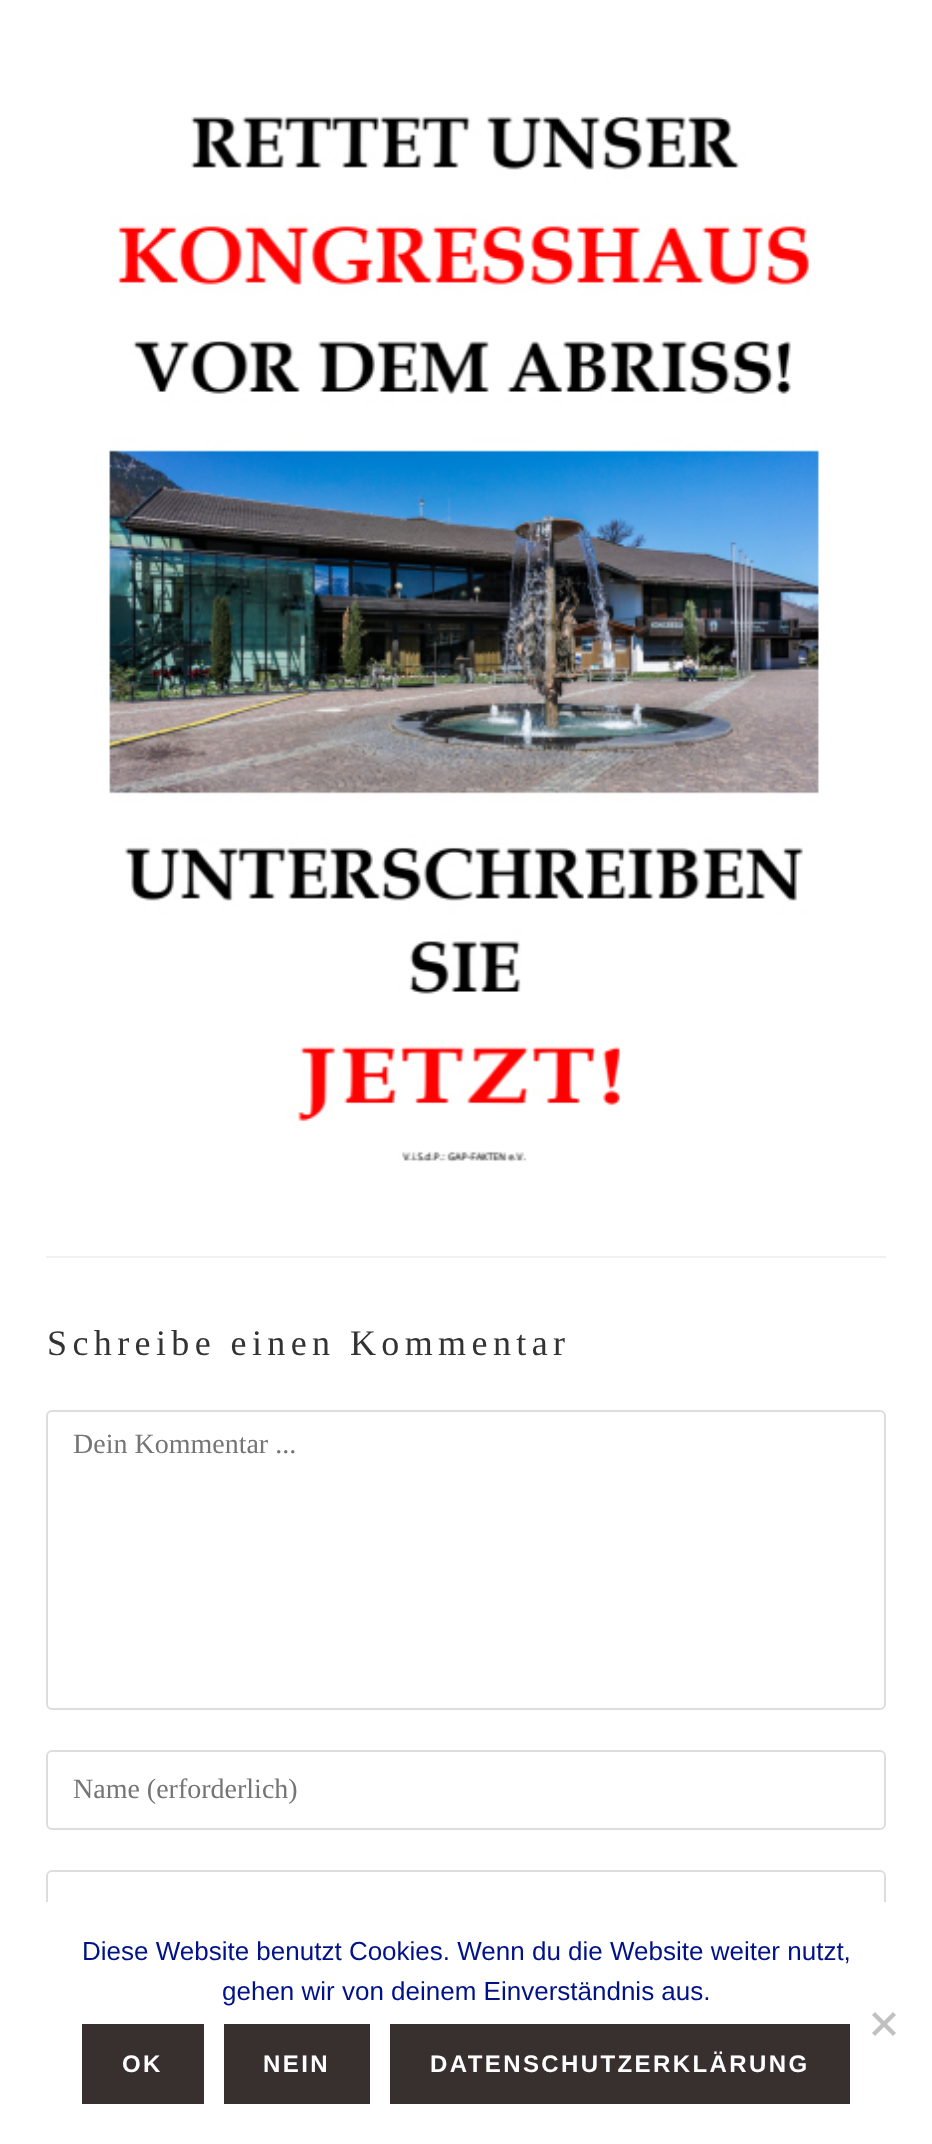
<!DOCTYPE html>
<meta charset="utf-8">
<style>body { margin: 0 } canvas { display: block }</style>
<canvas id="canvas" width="932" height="2144"></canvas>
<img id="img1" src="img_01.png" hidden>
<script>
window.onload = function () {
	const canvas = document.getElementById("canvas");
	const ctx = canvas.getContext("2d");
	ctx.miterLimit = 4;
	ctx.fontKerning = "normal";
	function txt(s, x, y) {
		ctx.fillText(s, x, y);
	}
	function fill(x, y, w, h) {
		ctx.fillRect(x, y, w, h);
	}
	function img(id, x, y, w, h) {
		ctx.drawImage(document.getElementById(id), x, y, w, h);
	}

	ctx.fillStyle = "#FFFFFF";
	fill(0, 0, 932, 2144);
	img("img1", 109, 116, 710, 1047);
	ctx.fillStyle = "#F1F1F1";
	fill(46, 1256, 840, 2);
	ctx.beginPath();
	ctx.roundRect(47, 1411, 838, 298, 5);
	ctx.strokeStyle = "#DDDDDD";
	ctx.lineWidth = 2;
	ctx.stroke();
	ctx.beginPath();
	ctx.roundRect(47, 1751, 838, 78, 5);
	ctx.stroke();
	ctx.beginPath();
	ctx.roundRect(47, 1871, 838, 78, 5);
	ctx.stroke();
	ctx.fillStyle = "#FFFFFF";
	fill(46, 1902, 840, 48);
	ctx.fillStyle = "#C0C0C0";
	ctx.beginPath();
	ctx.moveTo(893, 2012);
	ctx.lineTo(896, 2015);
	ctx.lineTo(875, 2036);
	ctx.lineTo(872, 2033);
	ctx.closePath();
	ctx.fill();
	ctx.beginPath();
	ctx.moveTo(872, 2015);
	ctx.lineTo(875, 2012);
	ctx.lineTo(896, 2033);
	ctx.lineTo(893, 2036);
	ctx.closePath();
	ctx.fill();
	ctx.fillStyle = "#382F2F";
	fill(82, 2024, 122, 80);
	fill(224, 2024, 146, 80);
	fill(390, 2024, 460, 80);
	ctx.letterSpacing = "5.4px";
	ctx.font = "36px Liberation Serif";
	ctx.fillStyle = "#333333";
	txt("Schreibe einen Kommentar", 47, 1355);
	ctx.letterSpacing = "0px";
	ctx.font = "28px Liberation Serif";
	ctx.fillStyle = "#757575";
	txt("Dein Kommentar ...", 73, 1453);
	txt("Name (erforderlich)", 73, 1798);
	ctx.font = "26px Liberation Sans";
	ctx.fillStyle = "#001287";
	txt("Diese Website benutzt Cookies. Wenn du die Website weiter nutzt,", 82, 1960);
	txt("gehen wir von deinem Einverständnis aus.", 222, 2000);
	ctx.letterSpacing = "2.4px";
	ctx.font = "bold 24px Liberation Sans";
	ctx.fillStyle = "#FFFFFF";
	txt("OK", 122, 2072);
	txt("NEIN", 263, 2072);
	txt("DATENSCHUTZERKLÄRUNG", 430, 2072);
};
</script>
